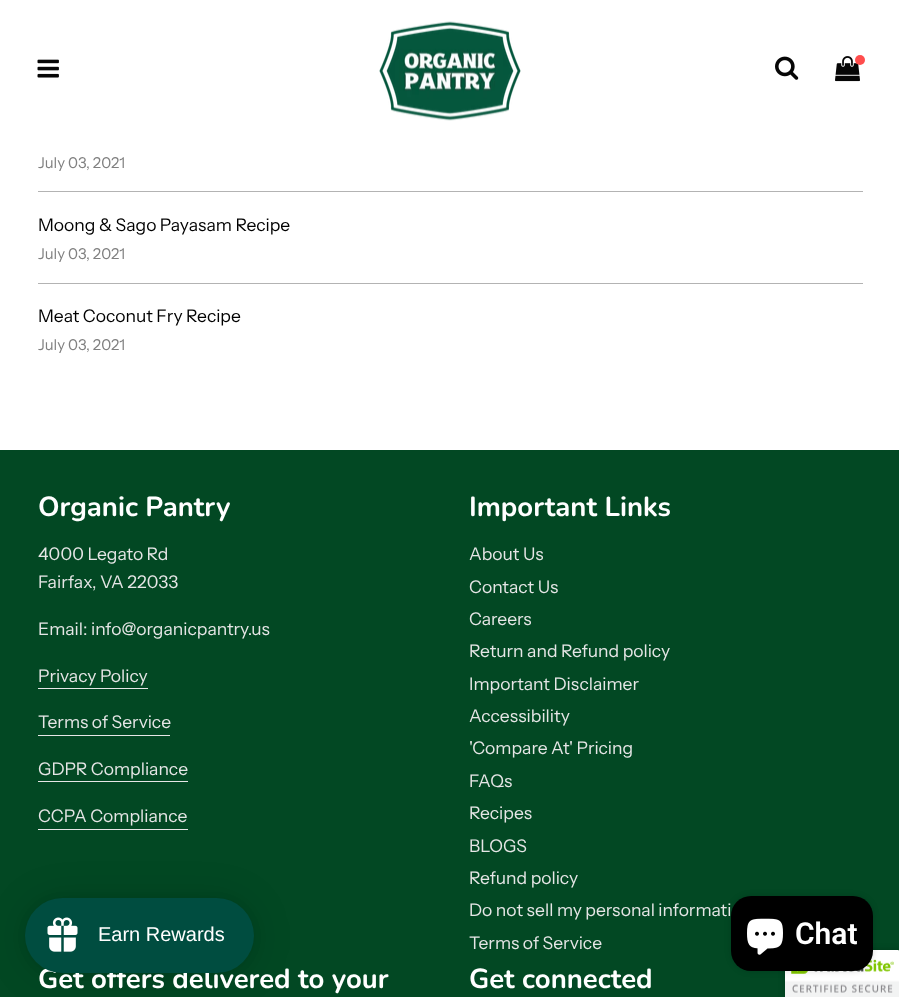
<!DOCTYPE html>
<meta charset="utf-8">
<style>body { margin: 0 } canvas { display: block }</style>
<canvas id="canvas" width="899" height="997"></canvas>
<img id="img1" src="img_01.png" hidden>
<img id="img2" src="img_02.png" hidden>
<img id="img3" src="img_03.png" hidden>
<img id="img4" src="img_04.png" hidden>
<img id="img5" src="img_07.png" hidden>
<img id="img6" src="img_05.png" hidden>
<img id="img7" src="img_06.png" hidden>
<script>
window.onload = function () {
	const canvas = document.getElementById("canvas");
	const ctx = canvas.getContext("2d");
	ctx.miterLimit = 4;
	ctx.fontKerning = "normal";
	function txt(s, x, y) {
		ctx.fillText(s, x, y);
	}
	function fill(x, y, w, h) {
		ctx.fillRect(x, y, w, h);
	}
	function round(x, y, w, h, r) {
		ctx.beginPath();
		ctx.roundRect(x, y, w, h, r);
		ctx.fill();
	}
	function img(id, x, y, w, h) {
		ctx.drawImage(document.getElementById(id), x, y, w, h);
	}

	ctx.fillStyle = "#FFFFFF";
	fill(0, 0, 899, 997);
	img("img1", 37, 59, 22, 19);
	img("img2", 379, 21, 142, 100);
	img("img3", 775, 56, 24, 24);
	img("img4", 835, 56, 25, 26);
	ctx.fillStyle = "#FF4D4D";
	ctx.beginPath();
	ctx.arc(860, 60, 5, 0, Math.PI * 2);
	ctx.fill();
	ctx.fillStyle = "#B3B3B3";
	fill(38, 191, 825, 1);
	fill(38, 283, 825, 1);
	ctx.fillStyle = "#024823";
	fill(0, 450, 899, 547);
	ctx.fillStyle = "#E6E6E6";
	fill(38, 688, 110, 1);
	fill(38, 735, 132, 1);
	fill(38, 781, 150, 1);
	fill(38, 829, 150, 1);
	ctx.fillStyle = "rgba(0, 0, 0, 0.2)";
	ctx.filter = "blur(3px)";
	ctx.beginPath();
	ctx.roundRect(785, 950, 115, 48, 2.5);
	ctx.fill();
	ctx.filter = "none";
	img("img5", 785, 950, 114, 47);
	ctx.fillStyle = "rgba(0, 0, 0, 0.15)";
	ctx.filter = "blur(3px)";
	ctx.beginPath();
	ctx.roundRect(731, 896, 142, 75, 20);
	ctx.fill();
	ctx.filter = "none";
	ctx.fillStyle = "#000000";
	round(731, 896, 142, 75, 20);
	img("img6", 747, 918, 36, 37);
	ctx.fillStyle = "rgba(0, 0, 0, 0.15)";
	ctx.filter = "blur(19px)";
	ctx.beginPath();
	ctx.roundRect(25, 900, 229, 75, 37.5);
	ctx.fill();
	ctx.filter = "none";
	ctx.fillStyle = "rgba(0, 0, 0, 0.05)";
	ctx.filter = "blur(4px)";
	ctx.beginPath();
	ctx.roundRect(25, 899, 229, 75, 37.5);
	ctx.fill();
	ctx.filter = "none";
	ctx.font = "15px Instrument Sans";
	ctx.fillStyle = "#808080";
	txt("July 03, 2021", 38, 168);
	ctx.font = "17.5px Instrument Sans";
	ctx.fillStyle = "#000000";
	txt("Moong & Sago Payasam Recipe", 38, 231);
	ctx.font = "15px Instrument Sans";
	ctx.fillStyle = "#808080";
	txt("July 03, 2021", 38, 259);
	ctx.font = "17.5px Instrument Sans";
	ctx.fillStyle = "#000000";
	txt("Meat Coconut Fry Recipe", 38, 322);
	ctx.font = "15px Instrument Sans";
	ctx.fillStyle = "#808080";
	txt("July 03, 2021", 38, 350);
	ctx.font = "bold 27.5px Nunito";
	ctx.fillStyle = "#FFFFFF";
	txt("Organic Pantry", 38, 516);
	ctx.font = "17.5px Instrument Sans";
	ctx.fillStyle = "#E6E6E6";
	txt("4000 Legato Rd", 38, 560);
	txt("Fairfax, VA 22033", 38, 588);
	txt("Email: info@organicpantry.us", 38, 635);
	txt("Privacy Policy", 38, 682);
	txt("Terms of Service", 38, 728);
	txt("GDPR Compliance", 38, 775);
	txt("CCPA Compliance", 38, 822);
	ctx.font = "bold 27.5px Nunito";
	ctx.fillStyle = "#FFFFFF";
	txt("Important Links", 469, 516);
	ctx.font = "17.5px Instrument Sans";
	ctx.fillStyle = "#E6E6E6";
	txt("About Us", 469, 560);
	txt("Contact Us", 469, 593);
	txt("Careers", 469, 625);
	txt("Return and Refund policy", 469, 657);
	txt("Important Disclaimer", 469, 690);
	txt("Accessibility", 469, 722);
	txt("'Compare At' Pricing", 469, 754);
	txt("FAQs", 469, 787);
	txt("Recipes", 469, 819);
	txt("BLOGS", 469, 852);
	txt("Refund policy", 469, 884);
	txt("Do not sell my personal informati", 469, 916);
	txt("Terms of Service", 469, 949);
	ctx.font = "bold 27.5px Nunito";
	ctx.fillStyle = "#FFFFFF";
	txt("Get offers delivered to your", 38, 988);
	txt("Get connected", 469, 988);
	ctx.font = "600 30px Roboto";
	txt("Chat", 795, 944);
	ctx.fillStyle = "#004D40";
	round(25, 898, 229, 75, 37.5);
	img("img7", 47, 917, 31, 35);
	ctx.font = "20px Liberation Sans";
	ctx.fillStyle = "#FFFFFF";
	txt("Earn Rewards", 98, 941);
};
</script>
